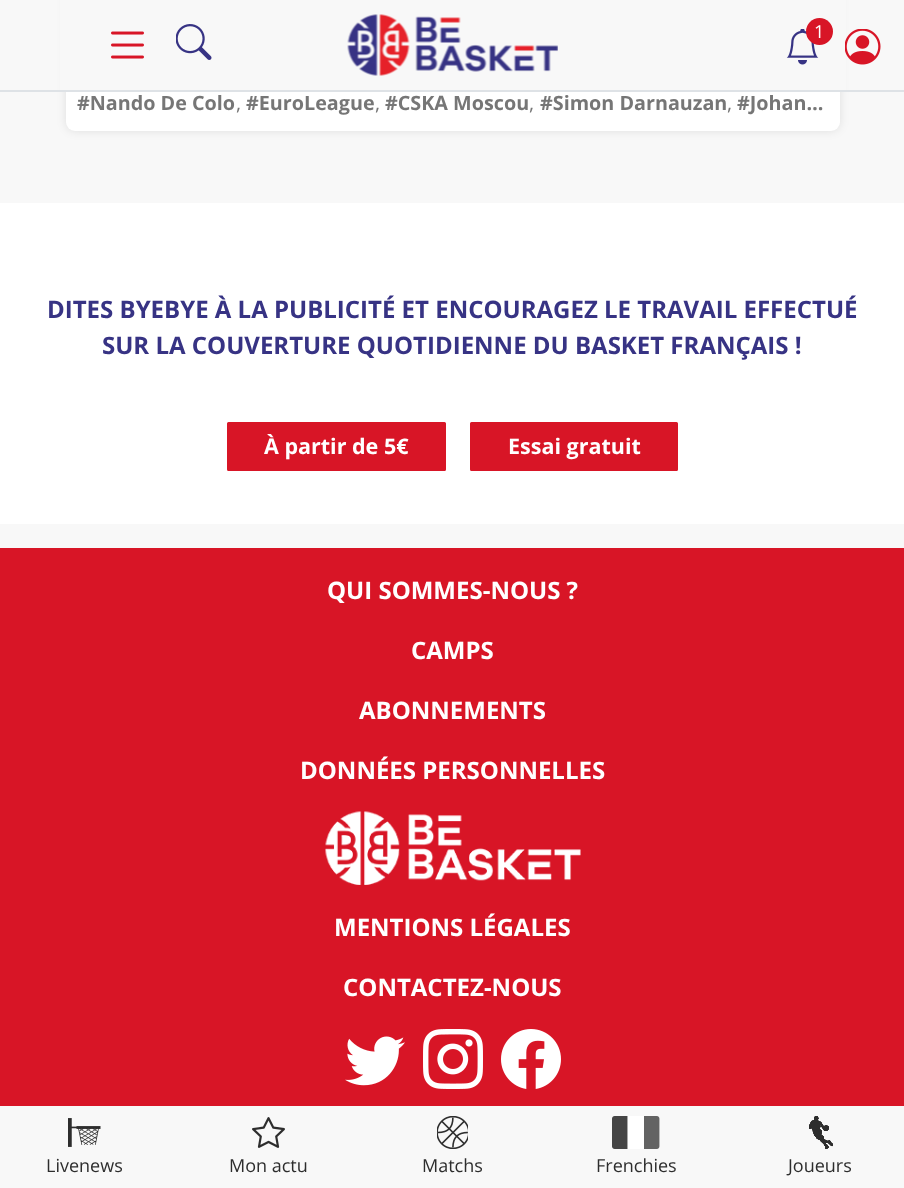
<!DOCTYPE html>
<meta charset="utf-8">
<style>body { margin: 0 } canvas { display: block }</style>
<canvas id="canvas" width="904" height="1188"></canvas>
<img id="img1" src="img_01.png" hidden>
<img id="img2" src="img_02.png" hidden>
<img id="img3" src="img_03.png" hidden>
<img id="img4" src="img_04.png" hidden>
<img id="img5" src="img_05.png" hidden>
<img id="img6" src="img_06.png" hidden>
<img id="img7" src="img_07.png" hidden>
<img id="img8" src="img_08.png" hidden>
<img id="img9" src="img_09.png" hidden>
<img id="img10" src="img_10.png" hidden>
<img id="img11" src="img_11.png" hidden>
<img id="img12" src="img_12.png" hidden>
<img id="img13" src="img_13.png" hidden>
<img id="img14" src="img_14.png" hidden>
<script>
window.onload = function () {
	const canvas = document.getElementById("canvas");
	const ctx = canvas.getContext("2d");
	ctx.miterLimit = 4;
	ctx.fontKerning = "normal";
	function txt(s, x, y) {
		ctx.fillText(s, x, y);
	}
	function fill(x, y, w, h) {
		ctx.fillRect(x, y, w, h);
	}
	function round(x, y, w, h, r) {
		ctx.beginPath();
		ctx.roundRect(x, y, w, h, r);
		ctx.fill();
	}
	function img(id, x, y, w, h) {
		ctx.drawImage(document.getElementById(id), x, y, w, h);
	}

	ctx.fillStyle = "#F8F8F8";
	fill(0, 0, 904, 1188);
	ctx.fillStyle = "rgba(0, 0, 0, 0.1)";
	ctx.filter = "blur(5px)";
	ctx.beginPath();
	ctx.roundRect(66, -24, 774, 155, 9);
	ctx.fill();
	ctx.filter = "none";
	ctx.fillStyle = "#FFFFFF";
	round(66, -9, 774, 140, 9);
	ctx.fillStyle = "#F8F8F8";
	fill(60, 0, 786, 90);
	ctx.fillStyle = "#DEE2E6";
	fill(0, 90, 904, 2);
	img("img1", 111, 31, 33, 28);
	img("img2", 176, 24, 36, 36);
	img("img3", 347, 14, 211, 62);
	img("img4", 786, 29, 33, 36);
	ctx.fillStyle = "#D81526";
	ctx.beginPath();
	ctx.arc(819.5, 31.5, 13.5, 0, Math.PI * 2);
	ctx.fill();
	img("img5", 845, 29, 36, 36);
	ctx.fillStyle = "#FFFFFF";
	fill(0, 203, 904, 321);
	ctx.fillStyle = "#D81526";
	ctx.beginPath();
	ctx.roundRect(228, 423, 217, 47, 0.5);
	ctx.fill();
	ctx.strokeStyle = "#D81526";
	ctx.lineWidth = 2;
	ctx.stroke();
	ctx.beginPath();
	ctx.roundRect(471, 423, 206, 47, 0.5);
	ctx.fill();
	ctx.stroke();
	fill(0, 548, 904, 558);
	img("img6", 325, 811, 256, 74);
	img("img7", 345, 1036, 60, 50);
	img("img8", 423, 1029, 60, 60);
	img("img9", 501, 1029, 60, 60);
	img("img10", 68, 1118, 33, 29);
	img("img11", 252, 1117, 33, 31);
	img("img12", 437, 1116, 31, 33);
	img("img13", 612, 1116, 48, 33);
	img("img14", 809, 1116, 24, 33);
	ctx.font = "18px Open Sans";
	ctx.fillStyle = "#FFFFFF";
	txt("1", 814, 38);
	ctx.font = "bold 19.75px Open Sans";
	ctx.fillStyle = "#767676";
	txt("#Nando De Colo", 77, 110);
	ctx.font = "19.75px Open Sans";
	txt(",", 236, 110);
	ctx.font = "bold 19.75px Open Sans";
	txt("#EuroLeague", 246, 110);
	ctx.font = "19.75px Open Sans";
	txt(",", 375, 110);
	ctx.font = "bold 19.75px Open Sans";
	txt("#CSKA Moscou", 385, 110);
	ctx.font = "19.75px Open Sans";
	txt(",", 529, 110);
	ctx.font = "bold 19.75px Open Sans";
	txt("#Simon Darnauzan", 540, 110);
	ctx.font = "19.75px Open Sans";
	txt(",", 727, 110);
	ctx.font = "bold 19.75px Open Sans";
	txt("#Johan…", 737, 110);
	ctx.font = "bold 24px Open Sans";
	ctx.fillStyle = "#373384";
	txt("DITES BYEBYE À LA PUBLICITÉ ET ENCOURAGEZ LE TRAVAIL EFFECTUÉ", 47, 318);
	txt("SUR LA COUVERTURE QUOTIDIENNE DU BASKET FRANÇAIS !", 102, 354);
	ctx.font = "bold 21.5px Open Sans";
	ctx.fillStyle = "#FFFFFF";
	txt("À partir de 5€", 264, 454);
	txt("Essai gratuit", 508, 454);
	ctx.font = "bold 24px Open Sans";
	txt("QUI SOMMES-NOUS ?", 327, 599);
	txt("CAMPS", 411, 659);
	txt("ABONNEMENTS", 359, 719);
	txt("DONNÉES PERSONNELLES", 300, 779);
	txt("MENTIONS LÉGALES", 334, 936);
	txt("CONTACTEZ-NOUS", 343, 996);
	ctx.font = "18px Open Sans";
	ctx.fillStyle = "#2D2D2D";
	txt("Livenews", 46, 1172);
	txt("Mon actu", 229, 1172);
	txt("Matchs", 422, 1172);
	txt("Frenchies", 596, 1172);
	txt("Joueurs", 788, 1172);
};
</script>
